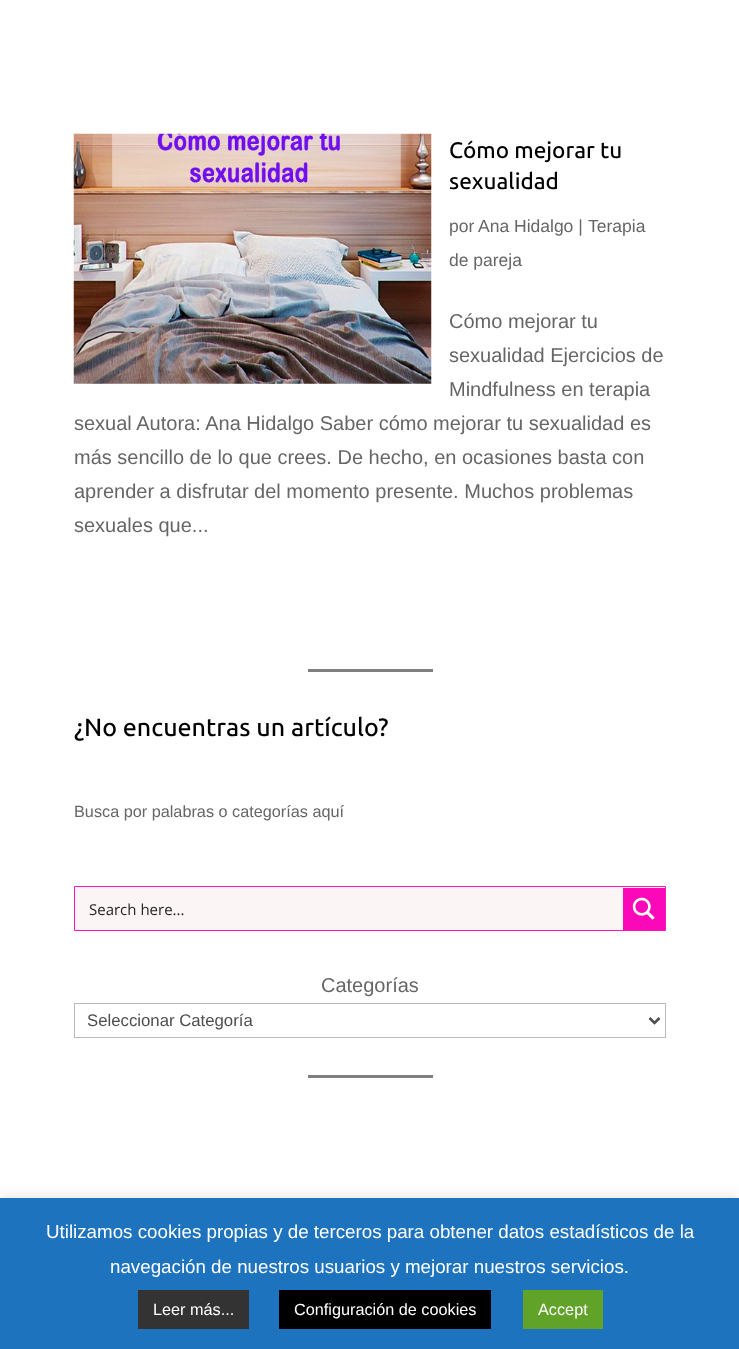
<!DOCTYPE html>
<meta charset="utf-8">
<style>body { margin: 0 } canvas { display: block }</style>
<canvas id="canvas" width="739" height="1349"></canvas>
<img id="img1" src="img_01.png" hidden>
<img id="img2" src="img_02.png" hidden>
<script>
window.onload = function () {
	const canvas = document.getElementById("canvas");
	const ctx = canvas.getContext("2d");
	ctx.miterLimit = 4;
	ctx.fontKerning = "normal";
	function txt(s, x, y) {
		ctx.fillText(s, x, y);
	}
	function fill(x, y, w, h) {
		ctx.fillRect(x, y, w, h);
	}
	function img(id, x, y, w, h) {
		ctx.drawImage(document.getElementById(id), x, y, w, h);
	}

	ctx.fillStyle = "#FFFFFF";
	fill(0, 0, 739, 1349);
	img("img1", 73, 133, 359, 251);
	ctx.fillStyle = "#808080";
	fill(308, 669, 125, 3);
	ctx.fillStyle = "#FBF5F5";
	ctx.beginPath();
	ctx.rect(74.5, 886.5, 591, 44);
	ctx.fill();
	ctx.strokeStyle = "#FD16BD";
	ctx.stroke();
	ctx.fillStyle = "#FB09B8";
	fill(623, 888, 42, 42);
	img("img2", 632, 897, 23, 23);
	ctx.strokeStyle = "#BBBBBB";
	ctx.strokeRect(74.5, 1003.5, 591, 34);
	ctx.beginPath();
	ctx.moveTo(649.5, 1018);
	ctx.lineTo(654.5, 1023);
	ctx.lineTo(659.5, 1018);
	ctx.strokeStyle = "#4E4E4E";
	ctx.lineWidth = 2.5;
	ctx.stroke();
	ctx.fillStyle = "#808080";
	fill(308, 1075, 125, 3);
	ctx.fillStyle = "rgba(172, 171, 171, 0.3)";
	ctx.filter = "blur(6px)";
	ctx.beginPath();
	ctx.rect(0, 1196, 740, 153);
	ctx.fill();
	ctx.filter = "none";
	ctx.fillStyle = "#1E73BE";
	fill(0, 1198, 739, 151);
	ctx.fillStyle = "#333333";
	fill(138, 1290, 111, 39);
	ctx.fillStyle = "#000000";
	fill(279, 1290, 212, 39);
	ctx.fillStyle = "#61A229";
	fill(523, 1290, 80, 39);
	ctx.font = "500 22.5px Ubuntu";
	ctx.fillStyle = "#000000";
	txt("Cómo mejorar tu", 449, 158);
	txt("sexualidad", 449, 189);
	ctx.font = "17.5px Liberation Sans";
	ctx.fillStyle = "#666666";
	txt("por", 449, 232);
	txt("Ana Hidalgo |", 478, 232);
	txt("Terapia", 588, 232);
	txt("de pareja", 449, 266);
	ctx.font = "20px Liberation Sans";
	txt("Cómo mejorar tu", 449, 328);
	txt("sexualidad Ejercicios de", 449, 362);
	txt("Mindfulness en terapia", 449, 396);
	txt("sexual Autora: Ana Hidalgo Saber cómo mejorar tu sexualidad es", 74, 430);
	txt("más sencillo de lo que crees. De hecho, en ocasiones basta con", 74, 464);
	txt("aprender a disfrutar del momento presente. Muchos problemas", 74, 498);
	txt("sexuales que...", 74, 532);
	ctx.font = "500 25px Ubuntu";
	ctx.fillStyle = "#000000";
	txt("¿No encuentras un artículo?", 74, 736);
	ctx.font = "16.25px Liberation Sans";
	ctx.fillStyle = "#666666";
	txt("Busca por palabras o categorías aquí", 74, 817);
	ctx.font = "15px Open Sans";
	ctx.fillStyle = "#262525";
	txt("Search here...", 89, 915);
	ctx.font = "20px Liberation Sans";
	ctx.fillStyle = "#666666";
	txt("Categorías", 321, 992);
	ctx.font = "16.75px Liberation Sans";
	ctx.fillStyle = "#4E4E4E";
	txt("Seleccionar Categoría", 87, 1026);
	ctx.font = "18.75px Liberation Sans";
	ctx.fillStyle = "#FFFFFF";
	txt("Utilizamos cookies propias y de terceros para obtener datos estadísticos de la", 46, 1238);
	txt("navegación de nuestros usuarios y mejorar nuestros servicios.", 110, 1273);
	ctx.font = "16.25px Liberation Sans";
	txt("Leer más...", 153, 1315);
	txt("Configuración de cookies", 294, 1315);
	txt("Accept", 538, 1315);
};
</script>
